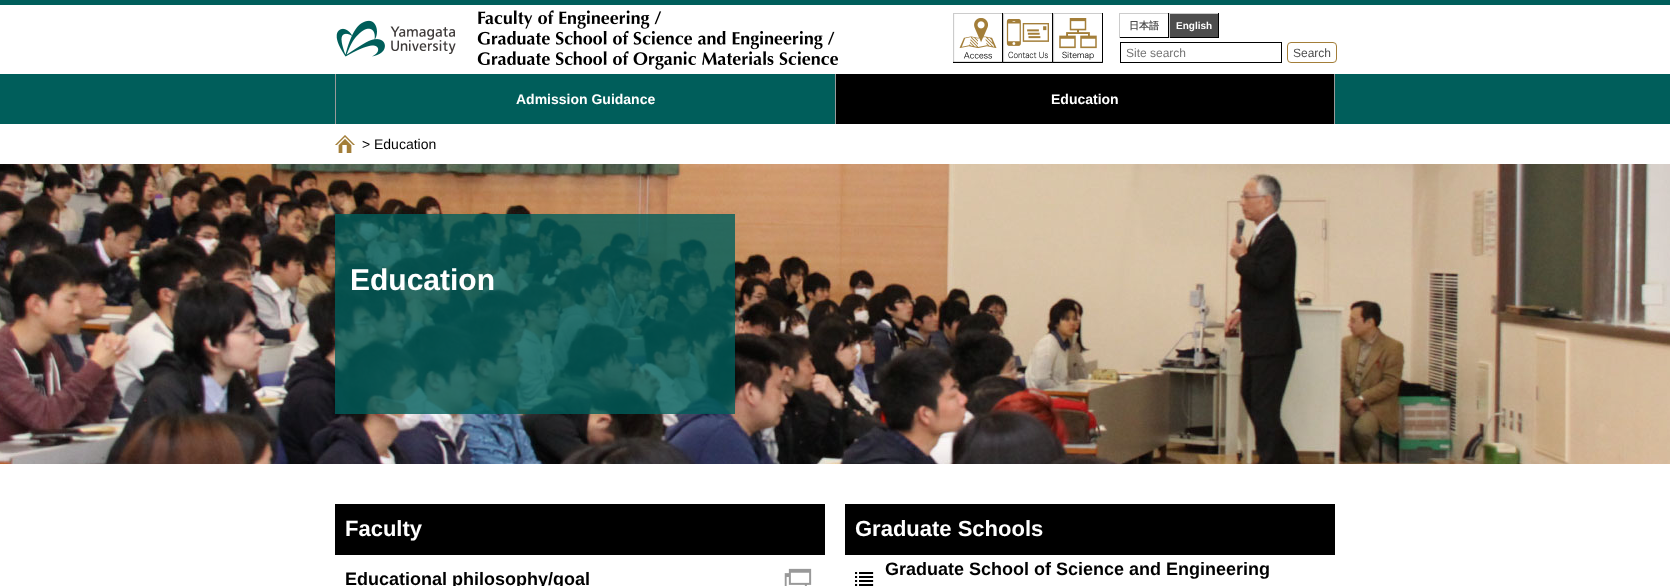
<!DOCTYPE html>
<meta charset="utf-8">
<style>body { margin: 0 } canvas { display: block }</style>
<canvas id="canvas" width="1670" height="586"></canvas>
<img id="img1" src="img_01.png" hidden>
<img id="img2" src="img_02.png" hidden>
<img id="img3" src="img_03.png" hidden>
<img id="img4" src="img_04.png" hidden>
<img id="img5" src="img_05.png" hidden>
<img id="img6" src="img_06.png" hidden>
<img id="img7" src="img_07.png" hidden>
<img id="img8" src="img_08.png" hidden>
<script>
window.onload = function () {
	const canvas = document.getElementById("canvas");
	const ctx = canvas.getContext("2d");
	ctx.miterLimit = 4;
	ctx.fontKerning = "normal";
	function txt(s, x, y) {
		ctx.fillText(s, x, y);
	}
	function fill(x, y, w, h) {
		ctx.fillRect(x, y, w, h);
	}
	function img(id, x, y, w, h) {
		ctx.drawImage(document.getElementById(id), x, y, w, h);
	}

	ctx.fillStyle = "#FFFFFF";
	fill(0, 0, 1670, 586);
	ctx.fillStyle = "#005E5B";
	fill(0, 0, 1670, 5);
	img("img1", 336, 10, 502, 60);
	img("img2", 953, 13, 50, 50);
	img("img3", 1003, 13, 50, 50);
	img("img4", 1053, 13, 50, 50);
	ctx.fillStyle = "#CCCCCC";
	fill(1119, 13, 100, 1);
	ctx.fillStyle = "#000000";
	fill(1168, 13, 1, 25);
	fill(1119, 37, 50, 1);
	ctx.fillStyle = "#CCCCCC";
	fill(1119, 13, 1, 25);
	ctx.fillStyle = "#4D4D4D";
	fill(1170, 14, 48, 23);
	ctx.fillStyle = "#000000";
	fill(1218, 13, 1, 25);
	fill(1169, 37, 50, 1);
	ctx.fillStyle = "#CCCCCC";
	fill(1169, 13, 1, 25);
	ctx.strokeStyle = "#000000";
	ctx.strokeRect(1120.5, 42.5, 161, 20);
	ctx.beginPath();
	ctx.roundRect(1287.5, 42.5, 49, 20, 3.5);
	ctx.strokeStyle = "#A37E39";
	ctx.stroke();
	ctx.fillStyle = "#005E5B";
	fill(0, 74, 1670, 50);
	ctx.fillStyle = "#999999";
	fill(335, 74, 1, 50);
	ctx.fillStyle = "#000000";
	fill(836, 74, 498, 50);
	ctx.fillStyle = "#999999";
	fill(1334, 74, 1, 50);
	fill(835, 74, 1, 50);
	img("img5", 335, 135, 20, 18);
	img("img6", 0, 164, 1670, 300);
	ctx.fillStyle = "rgba(0, 94, 91, 0.8)";
	fill(335, 214, 400, 200);
	ctx.fillStyle = "#000000";
	fill(335, 504, 490, 51);
	img("img7", 784, 568, 28, 18);
	fill(845, 504, 490, 51);
	img("img8", 855, 572, 19, 14);
	ctx.font = "bold 10px WenQuanYi Zen Hei";
	ctx.fillStyle = "#4D4D4D";
	txt("日本語", 1129, 29);
	ctx.font = "bold 10px Liberation Sans";
	ctx.fillStyle = "#FFFFFF";
	txt("English", 1176, 29);
	ctx.font = "12px Liberation Sans";
	ctx.fillStyle = "#757575";
	txt("Site search", 1126, 57);
	ctx.fillStyle = "#4D4D4D";
	txt("Search", 1293, 57);
	ctx.font = "bold 14px Liberation Sans";
	ctx.fillStyle = "#FFFFFF";
	txt("Admission Guidance", 516, 104);
	txt("Education", 1051, 104);
	ctx.font = "14px Liberation Sans";
	ctx.fillStyle = "#000000";
	txt(">", 362, 149);
	txt("Education", 374, 149);
	ctx.font = "bold 30px Liberation Sans";
	ctx.fillStyle = "#FFFFFF";
	txt("Education", 350, 290);
	ctx.font = "bold 22px Liberation Sans";
	txt("Faculty", 345, 536);
	ctx.font = "bold 18px Liberation Sans";
	ctx.fillStyle = "#000000";
	txt("Educational philosophy/goal", 345, 585);
	ctx.font = "bold 22px Liberation Sans";
	ctx.fillStyle = "#FFFFFF";
	txt("Graduate Schools", 855, 536);
	ctx.font = "bold 18px Liberation Sans";
	ctx.fillStyle = "#000000";
	txt("Graduate School of Science and Engineering", 885, 575);
};
</script>
